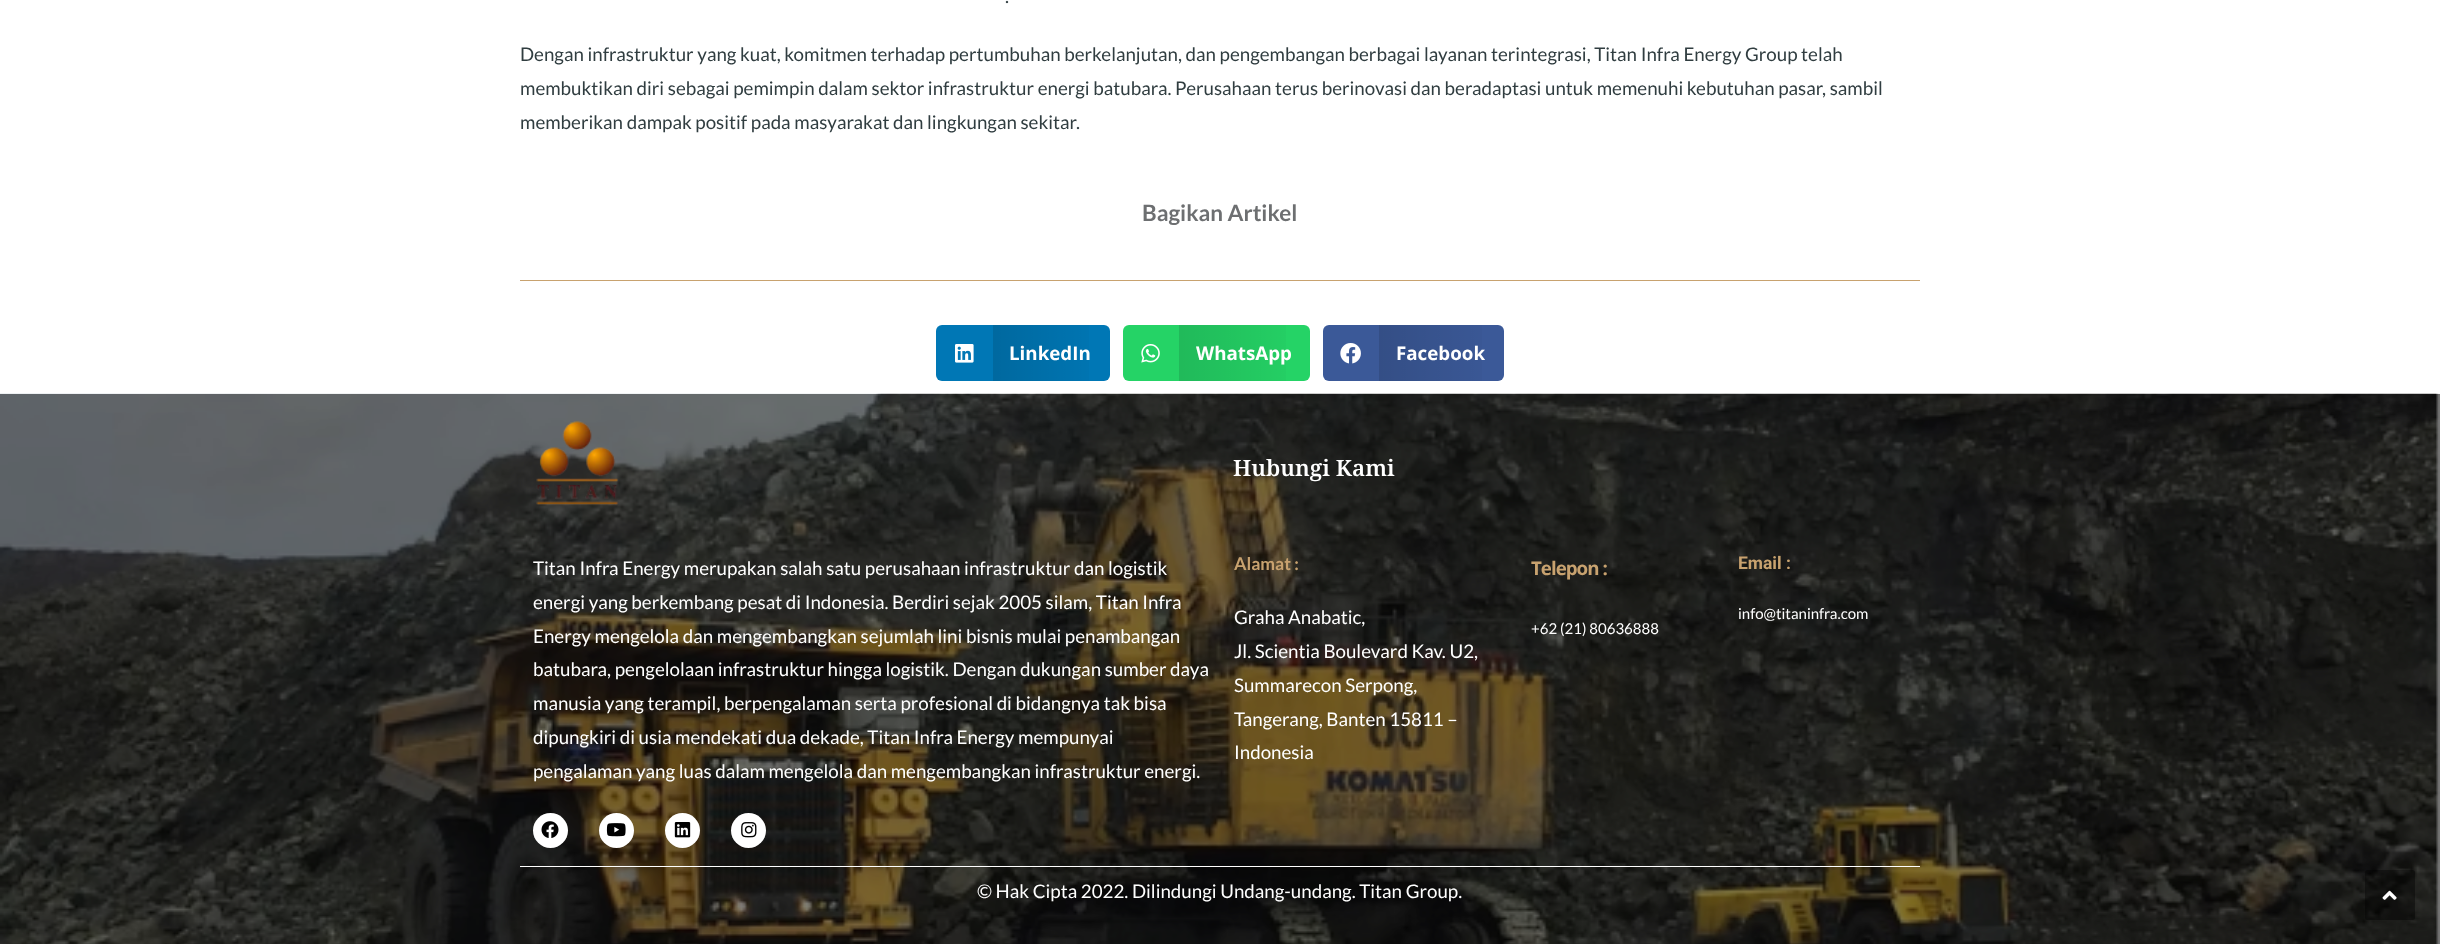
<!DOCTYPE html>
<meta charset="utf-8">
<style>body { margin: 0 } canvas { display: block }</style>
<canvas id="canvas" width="2440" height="944"></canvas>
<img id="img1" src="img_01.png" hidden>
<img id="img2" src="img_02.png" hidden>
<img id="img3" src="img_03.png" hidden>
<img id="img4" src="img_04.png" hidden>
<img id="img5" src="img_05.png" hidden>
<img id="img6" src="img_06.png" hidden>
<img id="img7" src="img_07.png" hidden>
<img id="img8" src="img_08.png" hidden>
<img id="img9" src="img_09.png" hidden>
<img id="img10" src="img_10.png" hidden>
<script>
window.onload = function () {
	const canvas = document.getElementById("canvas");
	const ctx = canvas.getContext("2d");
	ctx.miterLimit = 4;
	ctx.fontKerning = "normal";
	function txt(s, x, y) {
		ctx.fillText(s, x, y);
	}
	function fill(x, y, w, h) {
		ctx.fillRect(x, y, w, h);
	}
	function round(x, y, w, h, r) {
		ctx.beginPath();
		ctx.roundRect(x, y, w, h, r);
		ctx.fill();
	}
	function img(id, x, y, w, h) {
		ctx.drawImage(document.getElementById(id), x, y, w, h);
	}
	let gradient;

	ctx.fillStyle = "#FFFFFF";
	fill(0, 0, 2440, 944);
	ctx.fillStyle = "#808080";
	fill(2436, 394, 4, 550);
	ctx.fillStyle = "#C8A26F";
	fill(520, 280, 1400, 1);
	ctx.fillStyle = "#0077B5";
	round(936, 325, 174, 56, 6);
	img("img1", 955, 344, 19, 19);
	gradient = ctx.createLinearGradient(993, 353, 1110, 353);
	gradient.addColorStop(0, "rgba(0, 0, 0, 0.12)");
	gradient.addColorStop(1, "rgba(0, 0, 0, 0)");
	ctx.fillStyle = gradient;
	fill(993, 325, 96, 56);
	ctx.fillStyle = "#25D366";
	round(1123, 325, 187, 56, 6);
	img("img2", 1141, 344, 19, 19);
	gradient = ctx.createLinearGradient(1179, 353, 1310, 353);
	gradient.addColorStop(0, "rgba(0, 0, 0, 0.12)");
	gradient.addColorStop(1, "rgba(0, 0, 0, 0)");
	ctx.fillStyle = gradient;
	fill(1179, 325, 107, 56);
	ctx.fillStyle = "#3B5998";
	round(1323, 325, 181, 56, 6);
	img("img3", 1340, 343, 21, 21);
	gradient = ctx.createLinearGradient(1379, 353, 1504, 353);
	gradient.addColorStop(0, "rgba(0, 0, 0, 0.12)");
	gradient.addColorStop(1, "rgba(0, 0, 0, 0)");
	ctx.fillStyle = gradient;
	fill(1379, 325, 103, 56);
	img("img4", 0, 393, 2440, 551);
	img("img5", 536, 421, 83, 85);
	ctx.fillStyle = "#FFFFFF";
	ctx.beginPath();
	ctx.arc(550.5, 830.5, 17.5, 0, Math.PI * 2);
	ctx.fill();
	img("img6", 541, 821, 18, 17);
	ctx.beginPath();
	ctx.arc(616.5, 830.5, 17.5, 0, Math.PI * 2);
	ctx.fill();
	img("img7", 606, 823, 20, 14);
	ctx.beginPath();
	ctx.arc(682.5, 830.5, 17.5, 0, Math.PI * 2);
	ctx.fill();
	img("img8", 674, 822, 17, 16);
	ctx.beginPath();
	ctx.arc(748.5, 830.5, 17.5, 0, Math.PI * 2);
	ctx.fill();
	img("img9", 741, 822, 16, 16);
	fill(520, 866, 1400, 1);
	ctx.fillStyle = "rgba(0, 0, 0, 0.4)";
	round(2365, 870, 50, 50, 2.5);
	img("img10", 2382, 890, 15, 10);
	ctx.font = "18.75px Lato";
	ctx.fillStyle = "#303D40";
	txt(".", 1005, 3);
	txt("Dengan infrastruktur yang kuat, komitmen terhadap pertumbuhan berkelanjutan, dan pengembangan berbagai layanan terintegrasi, Titan Infra Energy Group telah", 520, 61);
	txt("membuktikan diri sebagai pemimpin dalam sektor infrastruktur energi batubara. Perusahaan terus berinovasi dan beradaptasi untuk memenuhi kebutuhan pasar, sambil", 520, 95);
	txt("memberikan dampak positif pada masyarakat dan lingkungan sekitar.", 520, 129);
	ctx.font = "bold 22.5px Lato";
	ctx.fillStyle = "#6D6F71";
	txt("Bagikan Artikel", 1142, 221);
	ctx.font = "bold 18.75px Open Sans";
	ctx.fillStyle = "#FFFFFF";
	txt("LinkedIn", 1009, 360);
	txt("WhatsApp", 1196, 360);
	txt("Facebook", 1396, 360);
	ctx.font = "600 22.5px Noto Serif";
	txt("Hubungi Kami", 1233, 476);
	ctx.font = "18.75px Lato";
	txt("Titan Infra Energy merupakan salah satu perusahaan infrastruktur dan logistik", 533, 575);
	txt("energi yang berkembang pesat di Indonesia. Berdiri sejak 2005 silam, Titan Infra", 533, 609);
	txt("Energy mengelola dan mengembangkan sejumlah lini bisnis mulai penambangan", 533, 643);
	txt("batubara, pengelolaan infrastruktur hingga logistik. Dengan dukungan sumber daya", 533, 676);
	txt("manusia yang terampil, berpengalaman serta profesional di bidangnya tak bisa", 533, 710);
	txt("dipungkiri di usia mendekati dua dekade, Titan Infra Energy mempunyai", 533, 744);
	txt("pengalaman yang luas dalam mengelola dan mengembangkan infrastruktur energi.", 533, 778);
	ctx.font = "bold 17.5px Lato";
	ctx.fillStyle = "#C8A26F";
	txt("Alamat :", 1234, 570);
	ctx.font = "18.75px Lato";
	ctx.fillStyle = "#FFFFFF";
	txt("Graha Anabatic,", 1234, 624);
	txt("Jl. Scientia Boulevard Kav. U2,", 1234, 658);
	txt("Summarecon Serpong,", 1234, 692);
	txt("Tangerang, Banten 15811 –", 1234, 726);
	txt("Indonesia", 1234, 759);
	ctx.letterSpacing = "-1px";
	ctx.font = "bold 18.75px Open Sans";
	ctx.fillStyle = "#C8A26F";
	txt("Telepon :", 1531, 575);
	ctx.letterSpacing = "0px";
	ctx.font = "15px Lato";
	ctx.fillStyle = "#FFFFFF";
	txt("+62 (21) 80636888", 1531, 634);
	ctx.font = "bold 17.5px Roboto";
	ctx.fillStyle = "#C8A26F";
	txt("Email :", 1738, 569);
	ctx.font = "15px Lato";
	ctx.fillStyle = "#FFFFFF";
	txt("info@titaninfra.com", 1738, 619);
	ctx.font = "18.75px Lato";
	txt("© Hak Cipta 2022. Dilindungi Undang-undang. Titan Group.", 977, 898);
};
</script>
